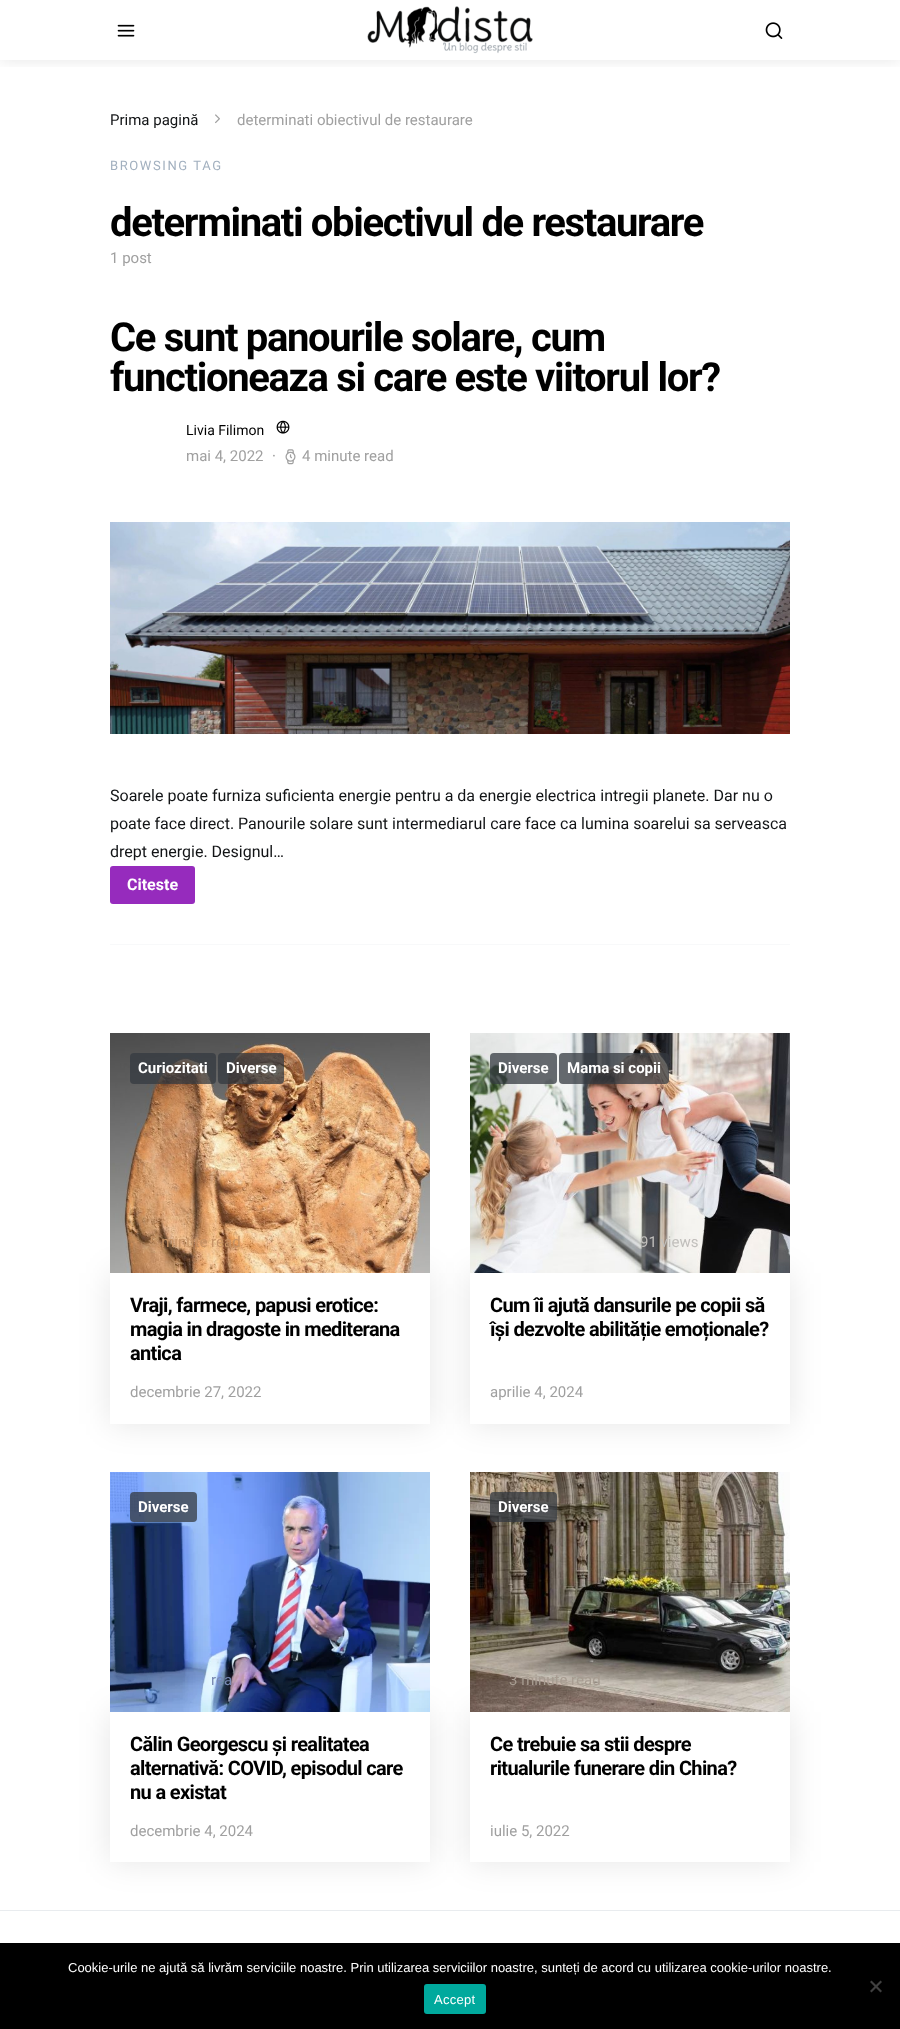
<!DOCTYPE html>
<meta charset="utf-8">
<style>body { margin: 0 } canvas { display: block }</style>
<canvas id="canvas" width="900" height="2029"></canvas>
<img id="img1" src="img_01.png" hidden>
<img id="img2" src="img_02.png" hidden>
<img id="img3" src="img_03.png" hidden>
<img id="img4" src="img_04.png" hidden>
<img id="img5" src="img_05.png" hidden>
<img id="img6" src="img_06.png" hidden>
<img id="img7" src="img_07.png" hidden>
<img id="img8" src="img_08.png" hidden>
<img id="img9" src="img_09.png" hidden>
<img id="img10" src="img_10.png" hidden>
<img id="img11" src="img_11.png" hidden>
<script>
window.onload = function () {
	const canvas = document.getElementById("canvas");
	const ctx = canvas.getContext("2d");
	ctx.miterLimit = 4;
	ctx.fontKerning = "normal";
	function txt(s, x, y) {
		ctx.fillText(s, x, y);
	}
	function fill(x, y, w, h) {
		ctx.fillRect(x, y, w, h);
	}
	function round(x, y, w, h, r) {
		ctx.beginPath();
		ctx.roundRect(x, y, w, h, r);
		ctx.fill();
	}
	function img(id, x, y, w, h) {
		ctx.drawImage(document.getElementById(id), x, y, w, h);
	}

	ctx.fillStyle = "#FFFFFF";
	fill(0, 0, 900, 2029);
	ctx.save();
	ctx.beginPath();
	ctx.rect(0, 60, 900, 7);
	ctx.clip();
	ctx.fillStyle = "rgba(0, 0, 0, 0.1)";
	ctx.filter = "blur(8px)";
	ctx.beginPath();
	ctx.rect(0, 0, 900, 60);
	ctx.fill();
	ctx.filter = "none";
	ctx.restore();
	img("img1", 117, 24, 18, 13);
	img("img2", 367, 6, 166, 48);
	img("img3", 765, 22, 18, 17);
	img("img4", 215, 114, 5, 10);
	img("img5", 276, 420, 14, 14);
	img("img6", 285, 449, 11, 16);
	img("img7", 110, 522, 680, 212);
	ctx.fillStyle = "#962BBD";
	round(110, 866, 85, 38, 3);
	ctx.fillStyle = "#F8F9FA";
	fill(110, 944, 680, 1);
	ctx.save();
	ctx.beginPath();
	ctx.moveTo(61, 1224);
	ctx.lineTo(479, 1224);
	ctx.lineTo(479, 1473);
	ctx.lineTo(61, 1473);
	ctx.closePath();
	ctx.moveTo(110, 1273);
	ctx.lineTo(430, 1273);
	ctx.lineTo(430, 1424);
	ctx.lineTo(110, 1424);
	ctx.closePath();
	ctx.clip("evenodd");
	ctx.fillStyle = "rgba(0, 0, 0, 0.1)";
	ctx.filter = "blur(16px)";
	ctx.beginPath();
	ctx.rect(110, 1273, 320, 151);
	ctx.fill();
	ctx.filter = "none";
	ctx.restore();
	img("img8", 110, 1033, 320, 240);
	ctx.fillStyle = "rgba(52, 58, 64, 0.75)";
	round(130, 1053, 86, 31, 4);
	round(218, 1053, 66, 31, 4);
	ctx.save();
	ctx.beginPath();
	ctx.moveTo(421, 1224);
	ctx.lineTo(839, 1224);
	ctx.lineTo(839, 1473);
	ctx.lineTo(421, 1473);
	ctx.closePath();
	ctx.moveTo(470, 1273);
	ctx.lineTo(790, 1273);
	ctx.lineTo(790, 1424);
	ctx.lineTo(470, 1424);
	ctx.closePath();
	ctx.clip("evenodd");
	ctx.fillStyle = "rgba(0, 0, 0, 0.1)";
	ctx.filter = "blur(16px)";
	ctx.beginPath();
	ctx.rect(470, 1273, 320, 151);
	ctx.fill();
	ctx.filter = "none";
	ctx.restore();
	img("img9", 470, 1033, 320, 240);
	round(490, 1053, 67, 31, 4);
	round(559, 1053, 110, 31, 4);
	ctx.fillStyle = "#E9ECEF";
	fill(0, 1910, 900, 1);
	ctx.save();
	ctx.beginPath();
	ctx.moveTo(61, 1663);
	ctx.lineTo(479, 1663);
	ctx.lineTo(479, 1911);
	ctx.lineTo(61, 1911);
	ctx.closePath();
	ctx.moveTo(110, 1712);
	ctx.lineTo(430, 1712);
	ctx.lineTo(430, 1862);
	ctx.lineTo(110, 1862);
	ctx.closePath();
	ctx.clip("evenodd");
	ctx.fillStyle = "rgba(0, 0, 0, 0.1)";
	ctx.filter = "blur(16px)";
	ctx.beginPath();
	ctx.rect(110, 1712, 320, 150);
	ctx.fill();
	ctx.filter = "none";
	ctx.restore();
	img("img10", 110, 1472, 320, 240);
	ctx.fillStyle = "rgba(52, 58, 64, 0.75)";
	round(130, 1492, 67, 30, 4);
	ctx.save();
	ctx.beginPath();
	ctx.moveTo(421, 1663);
	ctx.lineTo(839, 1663);
	ctx.lineTo(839, 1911);
	ctx.lineTo(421, 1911);
	ctx.closePath();
	ctx.moveTo(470, 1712);
	ctx.lineTo(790, 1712);
	ctx.lineTo(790, 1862);
	ctx.lineTo(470, 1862);
	ctx.closePath();
	ctx.clip("evenodd");
	ctx.fillStyle = "rgba(0, 0, 0, 0.1)";
	ctx.filter = "blur(16px)";
	ctx.beginPath();
	ctx.rect(470, 1712, 320, 150);
	ctx.fill();
	ctx.filter = "none";
	ctx.restore();
	img("img11", 470, 1472, 320, 240);
	round(490, 1492, 67, 30, 4);
	ctx.fillStyle = "#000000";
	fill(0, 1943, 900, 86);
	ctx.fillStyle = "#404040";
	ctx.beginPath();
	ctx.moveTo(880.5, 1980.5);
	ctx.lineTo(882, 1982);
	ctx.lineTo(871.5, 1992.5);
	ctx.lineTo(870, 1991);
	ctx.closePath();
	ctx.fill();
	ctx.beginPath();
	ctx.moveTo(870, 1982);
	ctx.lineTo(871.5, 1980.5);
	ctx.lineTo(882, 1991);
	ctx.lineTo(880.5, 1992.5);
	ctx.closePath();
	ctx.fill();
	ctx.fillStyle = "#00A99D";
	round(424, 1984, 62, 30, 3);
	ctx.font = "15px Roboto";
	ctx.fillStyle = "#121416";
	txt("Prima pagină", 110, 125);
	ctx.fillStyle = "#A0A0A0";
	txt("determinati obiectivul de restaurare", 237, 125);
	ctx.letterSpacing = "1.6px";
	ctx.font = "13px Roboto";
	ctx.fillStyle = "#A2B0BF";
	txt("BROWSING TAG", 110, 170);
	ctx.letterSpacing = "-1.35px";
	ctx.font = "bold 40px Roboto";
	ctx.fillStyle = "#000000";
	txt("determinati obiectivul de restaurare", 110, 236);
	ctx.letterSpacing = "0px";
	ctx.font = "15px Roboto";
	ctx.fillStyle = "#A0A0A0";
	txt("1 post", 110, 263);
	ctx.letterSpacing = "-1.35px";
	ctx.font = "bold 40px Roboto";
	ctx.fillStyle = "#000000";
	txt("Ce sunt panourile solare, cum", 110, 351);
	txt("functioneaza si care este viitorul lor?", 110, 391);
	ctx.letterSpacing = "0px";
	ctx.font = "14px Roboto";
	txt("Livia Filimon", 186, 435);
	ctx.font = "15px Roboto";
	ctx.fillStyle = "#A0A0A0";
	txt("mai 4, 2022", 186, 461);
	txt("·", 272, 461);
	txt("4 minute read", 302, 461);
	ctx.font = "16px Roboto";
	ctx.fillStyle = "#121416";
	txt("Soarele poate furniza suficienta energie pentru a da energie electrica intregii planete. Dar nu o", 110, 801);
	txt("poate face direct. Panourile solare sunt intermediarul care face ca lumina soarelui sa serveasca", 110, 829);
	txt("drept energie. Designul…", 110, 857);
	ctx.font = "bold 16px Roboto";
	ctx.fillStyle = "#FFFFFF";
	txt("Citeste", 127, 890);
	ctx.font = "bold 15px Roboto";
	txt("Curiozitati", 138, 1073);
	txt("Diverse", 226, 1073);
	ctx.font = "15px Roboto";
	ctx.fillStyle = "#C69264";
	txt("5 minute read", 149, 1247);
	ctx.letterSpacing = "-0.65px";
	ctx.font = "bold 20px Roboto";
	ctx.fillStyle = "#000000";
	txt("Vraji, farmece, papusi erotice:", 130, 1312);
	txt("magia in dragoste in mediterana", 130, 1336);
	txt("antica", 130, 1360);
	ctx.letterSpacing = "0px";
	ctx.font = "15px Roboto";
	ctx.fillStyle = "#A0A0A0";
	txt("decembrie 27, 2022", 130, 1397);
	ctx.font = "bold 15px Roboto";
	ctx.fillStyle = "#FFFFFF";
	txt("Diverse", 498, 1073);
	txt("Mama si copii", 567, 1073);
	ctx.font = "15px Roboto";
	ctx.fillStyle = "#C1BFBC";
	txt("91 views", 640, 1247);
	ctx.letterSpacing = "-0.65px";
	ctx.font = "bold 20px Roboto";
	ctx.fillStyle = "#000000";
	txt("Cum îi ajută dansurile pe copii să", 490, 1312);
	txt("își dezvolte abilităție emoționale?", 490, 1336);
	ctx.letterSpacing = "0px";
	ctx.font = "15px Roboto";
	ctx.fillStyle = "#A0A0A0";
	txt("aprilie 4, 2024", 490, 1397);
	ctx.font = "bold 15px Roboto";
	ctx.fillStyle = "#FFFFFF";
	txt("Diverse", 138, 1512);
	ctx.font = "15px Roboto";
	ctx.fillStyle = "#788AB4";
	txt("rea", 211, 1685);
	ctx.letterSpacing = "-0.65px";
	ctx.font = "bold 20px Roboto";
	ctx.fillStyle = "#000000";
	txt("Călin Georgescu și realitatea", 130, 1751);
	txt("alternativă: COVID, episodul care", 130, 1775);
	txt("nu a existat", 130, 1799);
	ctx.letterSpacing = "0px";
	ctx.font = "15px Roboto";
	ctx.fillStyle = "#A0A0A0";
	txt("decembrie 4, 2024", 130, 1836);
	ctx.font = "bold 15px Roboto";
	ctx.fillStyle = "#FFFFFF";
	txt("Diverse", 498, 1512);
	ctx.font = "15px Roboto";
	ctx.fillStyle = "#A79C91";
	txt("3 minute read", 509, 1685);
	ctx.letterSpacing = "-0.65px";
	ctx.font = "bold 20px Roboto";
	ctx.fillStyle = "#000000";
	txt("Ce trebuie sa stii despre", 490, 1751);
	txt("ritualurile funerare din China?", 490, 1775);
	ctx.letterSpacing = "0px";
	ctx.font = "15px Roboto";
	ctx.fillStyle = "#A0A0A0";
	txt("iulie 5, 2022", 490, 1836);
	ctx.font = "13px Liberation Sans";
	ctx.fillStyle = "#FFFFFF";
	txt("Cookie-urile ne ajută să livrăm serviciile noastre. Prin utilizarea serviciilor noastre, sunteți de acord cu utilizarea cookie-urilor noastre.", 68, 1972);
	ctx.letterSpacing = "0.25px";
	txt("Accept", 434, 2004);
};
</script>
